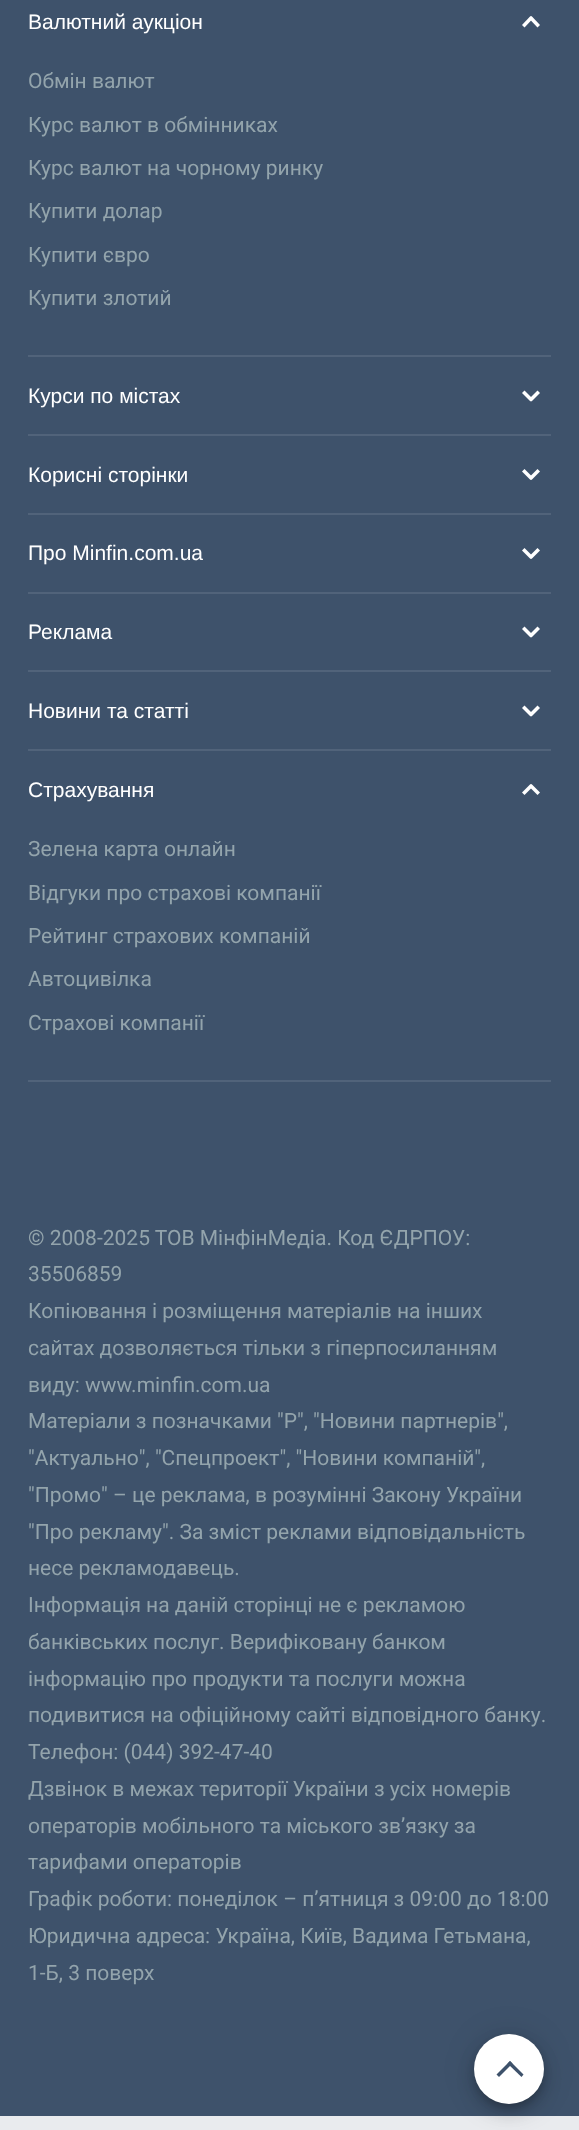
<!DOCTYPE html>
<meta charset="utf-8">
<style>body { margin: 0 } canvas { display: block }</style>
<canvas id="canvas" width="579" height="2130"></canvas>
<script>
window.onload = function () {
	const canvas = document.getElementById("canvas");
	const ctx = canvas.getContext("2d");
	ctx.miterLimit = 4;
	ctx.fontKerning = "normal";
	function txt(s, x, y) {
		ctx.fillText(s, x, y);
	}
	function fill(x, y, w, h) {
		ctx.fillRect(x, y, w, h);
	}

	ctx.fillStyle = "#E9EBEE";
	fill(0, 0, 579, 2130);
	ctx.fillStyle = "#3E526B";
	fill(0, 0, 579, 2116);
	ctx.fillStyle = "#FFFFFF";
	ctx.beginPath();
	ctx.moveTo(531.5, 16);
	ctx.lineTo(540, 25);
	ctx.lineTo(537.5, 27.5);
	ctx.lineTo(529, 18.5);
	ctx.closePath();
	ctx.fill();
	ctx.beginPath();
	ctx.moveTo(522, 25);
	ctx.lineTo(530.5, 16);
	ctx.lineTo(533, 18.5);
	ctx.lineTo(524.5, 27.5);
	ctx.closePath();
	ctx.fill();
	ctx.fillStyle = "#51637A";
	fill(28, 355, 523, 2);
	ctx.fillStyle = "#FFFFFF";
	ctx.beginPath();
	ctx.moveTo(529, 399);
	ctx.lineTo(537.5, 390.5);
	ctx.lineTo(540, 393);
	ctx.lineTo(531.5, 401.5);
	ctx.closePath();
	ctx.fill();
	ctx.beginPath();
	ctx.moveTo(524.5, 390.5);
	ctx.lineTo(533, 399);
	ctx.lineTo(530.5, 401.5);
	ctx.lineTo(522, 393);
	ctx.closePath();
	ctx.fill();
	ctx.fillStyle = "#51637A";
	fill(28, 434, 523, 2);
	ctx.fillStyle = "#FFFFFF";
	ctx.beginPath();
	ctx.moveTo(529, 477.5);
	ctx.lineTo(537.5, 469);
	ctx.lineTo(540, 471.5);
	ctx.lineTo(531.5, 480);
	ctx.closePath();
	ctx.fill();
	ctx.beginPath();
	ctx.moveTo(524.5, 469);
	ctx.lineTo(533, 477.5);
	ctx.lineTo(530.5, 480);
	ctx.lineTo(522, 471.5);
	ctx.closePath();
	ctx.fill();
	ctx.fillStyle = "#51637A";
	fill(28, 513, 523, 2);
	ctx.fillStyle = "#FFFFFF";
	ctx.beginPath();
	ctx.moveTo(529, 556.5);
	ctx.lineTo(537.5, 548);
	ctx.lineTo(540, 550.5);
	ctx.lineTo(531.5, 559);
	ctx.closePath();
	ctx.fill();
	ctx.beginPath();
	ctx.moveTo(524.5, 548);
	ctx.lineTo(533, 556.5);
	ctx.lineTo(530.5, 559);
	ctx.lineTo(522, 550.5);
	ctx.closePath();
	ctx.fill();
	ctx.fillStyle = "#51637A";
	fill(28, 592, 523, 2);
	ctx.fillStyle = "#FFFFFF";
	ctx.beginPath();
	ctx.moveTo(529, 635);
	ctx.lineTo(537.5, 626.5);
	ctx.lineTo(540, 629);
	ctx.lineTo(531.5, 637.5);
	ctx.closePath();
	ctx.fill();
	ctx.beginPath();
	ctx.moveTo(524.5, 626.5);
	ctx.lineTo(533, 635);
	ctx.lineTo(530.5, 637.5);
	ctx.lineTo(522, 629);
	ctx.closePath();
	ctx.fill();
	ctx.fillStyle = "#51637A";
	fill(28, 670, 523, 2);
	ctx.fillStyle = "#FFFFFF";
	ctx.beginPath();
	ctx.moveTo(529, 714);
	ctx.lineTo(537.5, 705.5);
	ctx.lineTo(540, 708);
	ctx.lineTo(531.5, 716.5);
	ctx.closePath();
	ctx.fill();
	ctx.beginPath();
	ctx.moveTo(524.5, 705.5);
	ctx.lineTo(533, 714);
	ctx.lineTo(530.5, 716.5);
	ctx.lineTo(522, 708);
	ctx.closePath();
	ctx.fill();
	ctx.fillStyle = "#51637A";
	fill(28, 749, 523, 2);
	ctx.fillStyle = "#FFFFFF";
	ctx.beginPath();
	ctx.moveTo(531.5, 784);
	ctx.lineTo(540, 792.5);
	ctx.lineTo(537.5, 795);
	ctx.lineTo(529, 786.5);
	ctx.closePath();
	ctx.fill();
	ctx.beginPath();
	ctx.moveTo(522, 792.5);
	ctx.lineTo(530.5, 784);
	ctx.lineTo(533, 786.5);
	ctx.lineTo(524.5, 795);
	ctx.closePath();
	ctx.fill();
	ctx.fillStyle = "#51637A";
	fill(28, 1080, 523, 2);
	ctx.fillStyle = "rgba(0, 0, 0, 0.12)";
	ctx.filter = "blur(16px)";
	ctx.beginPath();
	ctx.roundRect(474, 2035, 70, 70, 35);
	ctx.fill();
	ctx.filter = "none";
	ctx.fillStyle = "rgba(0, 0, 0, 0.14)";
	ctx.filter = "blur(9px)";
	ctx.beginPath();
	ctx.roundRect(474, 2044, 70, 70, 35);
	ctx.fill();
	ctx.filter = "none";
	ctx.fillStyle = "rgba(0, 0, 0, 0.2)";
	ctx.filter = "blur(4.5px)";
	ctx.beginPath();
	ctx.roundRect(476, 2041, 67, 66, 33);
	ctx.fill();
	ctx.filter = "none";
	ctx.fillStyle = "#FFFFFF";
	ctx.beginPath();
	ctx.arc(509, 2069, 35, 0, Math.PI * 2);
	ctx.fill();
	ctx.fillStyle = "#3E526B";
	ctx.beginPath();
	ctx.moveTo(510, 2061);
	ctx.lineTo(523.5, 2074.5);
	ctx.lineTo(521.5, 2077);
	ctx.lineTo(507.5, 2063.5);
	ctx.closePath();
	ctx.fill();
	ctx.beginPath();
	ctx.moveTo(510, 2061);
	ctx.lineTo(512.5, 2063.5);
	ctx.lineTo(499, 2077);
	ctx.lineTo(496.5, 2074.5);
	ctx.closePath();
	ctx.fill();
	ctx.font = "21px Liberation Sans";
	ctx.fillStyle = "#FFFFFF";
	txt("Валютний аукціон", 28, 29);
	ctx.font = "21px Roboto";
	ctx.fillStyle = "#93A4AC";
	txt("Обмін валют", 28, 88);
	txt("Курс валют в обмінниках", 28, 132);
	txt("Курс валют на чорному ринку", 28, 175);
	txt("Купити долар", 28, 218);
	txt("Купити євро", 28, 262);
	txt("Купити злотий", 28, 305);
	ctx.font = "21px Liberation Sans";
	ctx.fillStyle = "#FFFFFF";
	txt("Курси по містах", 28, 403);
	txt("Корисні сторінки", 28, 482);
	txt("Про Minfin.com.ua", 28, 560);
	txt("Реклама", 28, 639);
	txt("Новини та статті", 28, 718);
	txt("Страхування", 28, 797);
	ctx.font = "21px Roboto";
	ctx.fillStyle = "#93A4AC";
	txt("Зелена карта онлайн", 28, 856);
	txt("Відгуки про страхові компанії", 28, 900);
	txt("Рейтинг страхових компаній", 28, 943);
	txt("Автоцивілка", 28, 986);
	txt("Страхові компанії", 28, 1030);
	txt("© 2008-2025 ТОВ МiнфiнМедiа. Код ЄДРПОУ:", 28, 1245);
	txt("35506859", 28, 1281);
	txt("Копіювання і розміщення матеріалів на інших", 28, 1318);
	txt("сайтах дозволяється тільки з гіперпосиланням", 28, 1355);
	txt("виду: www.minfin.com.ua", 28, 1392);
	txt("Матеріали з позначками \"Р\", \"Новини партнерів\",", 28, 1428);
	txt("\"Актуально\", \"Спецпроект\", \"Новини компаній\",", 28, 1465);
	txt("\"Промо\" – це реклама, в розумінні Закону України", 28, 1502);
	txt("\"Про рекламу\". За зміст реклами відповідальність", 28, 1539);
	txt("несе рекламодавець.", 28, 1575);
	txt("Інформація на даній сторінці не є рекламою", 28, 1612);
	txt("банківських послуг. Верифіковану банком", 28, 1649);
	txt("інформацію про продукти та послуги можна", 28, 1686);
	txt("подивитися на офіційному сайті відповідного банку.", 28, 1722);
	txt("Телефон: (044) 392-47-40", 28, 1759);
	txt("Дзвінок в межах території України з усіх номерів", 28, 1796);
	txt("операторів мобільного та міського зв’язку за", 28, 1833);
	txt("тарифами операторів", 28, 1869);
	txt("Графік роботи: понеділок – п’ятниця з 09:00 до 18:00", 28, 1906);
	txt("Юридична адреса: Україна, Київ, Вадима Гетьмана,", 28, 1943);
	txt("1-Б, 3 поверх", 28, 1980);
};
</script>
